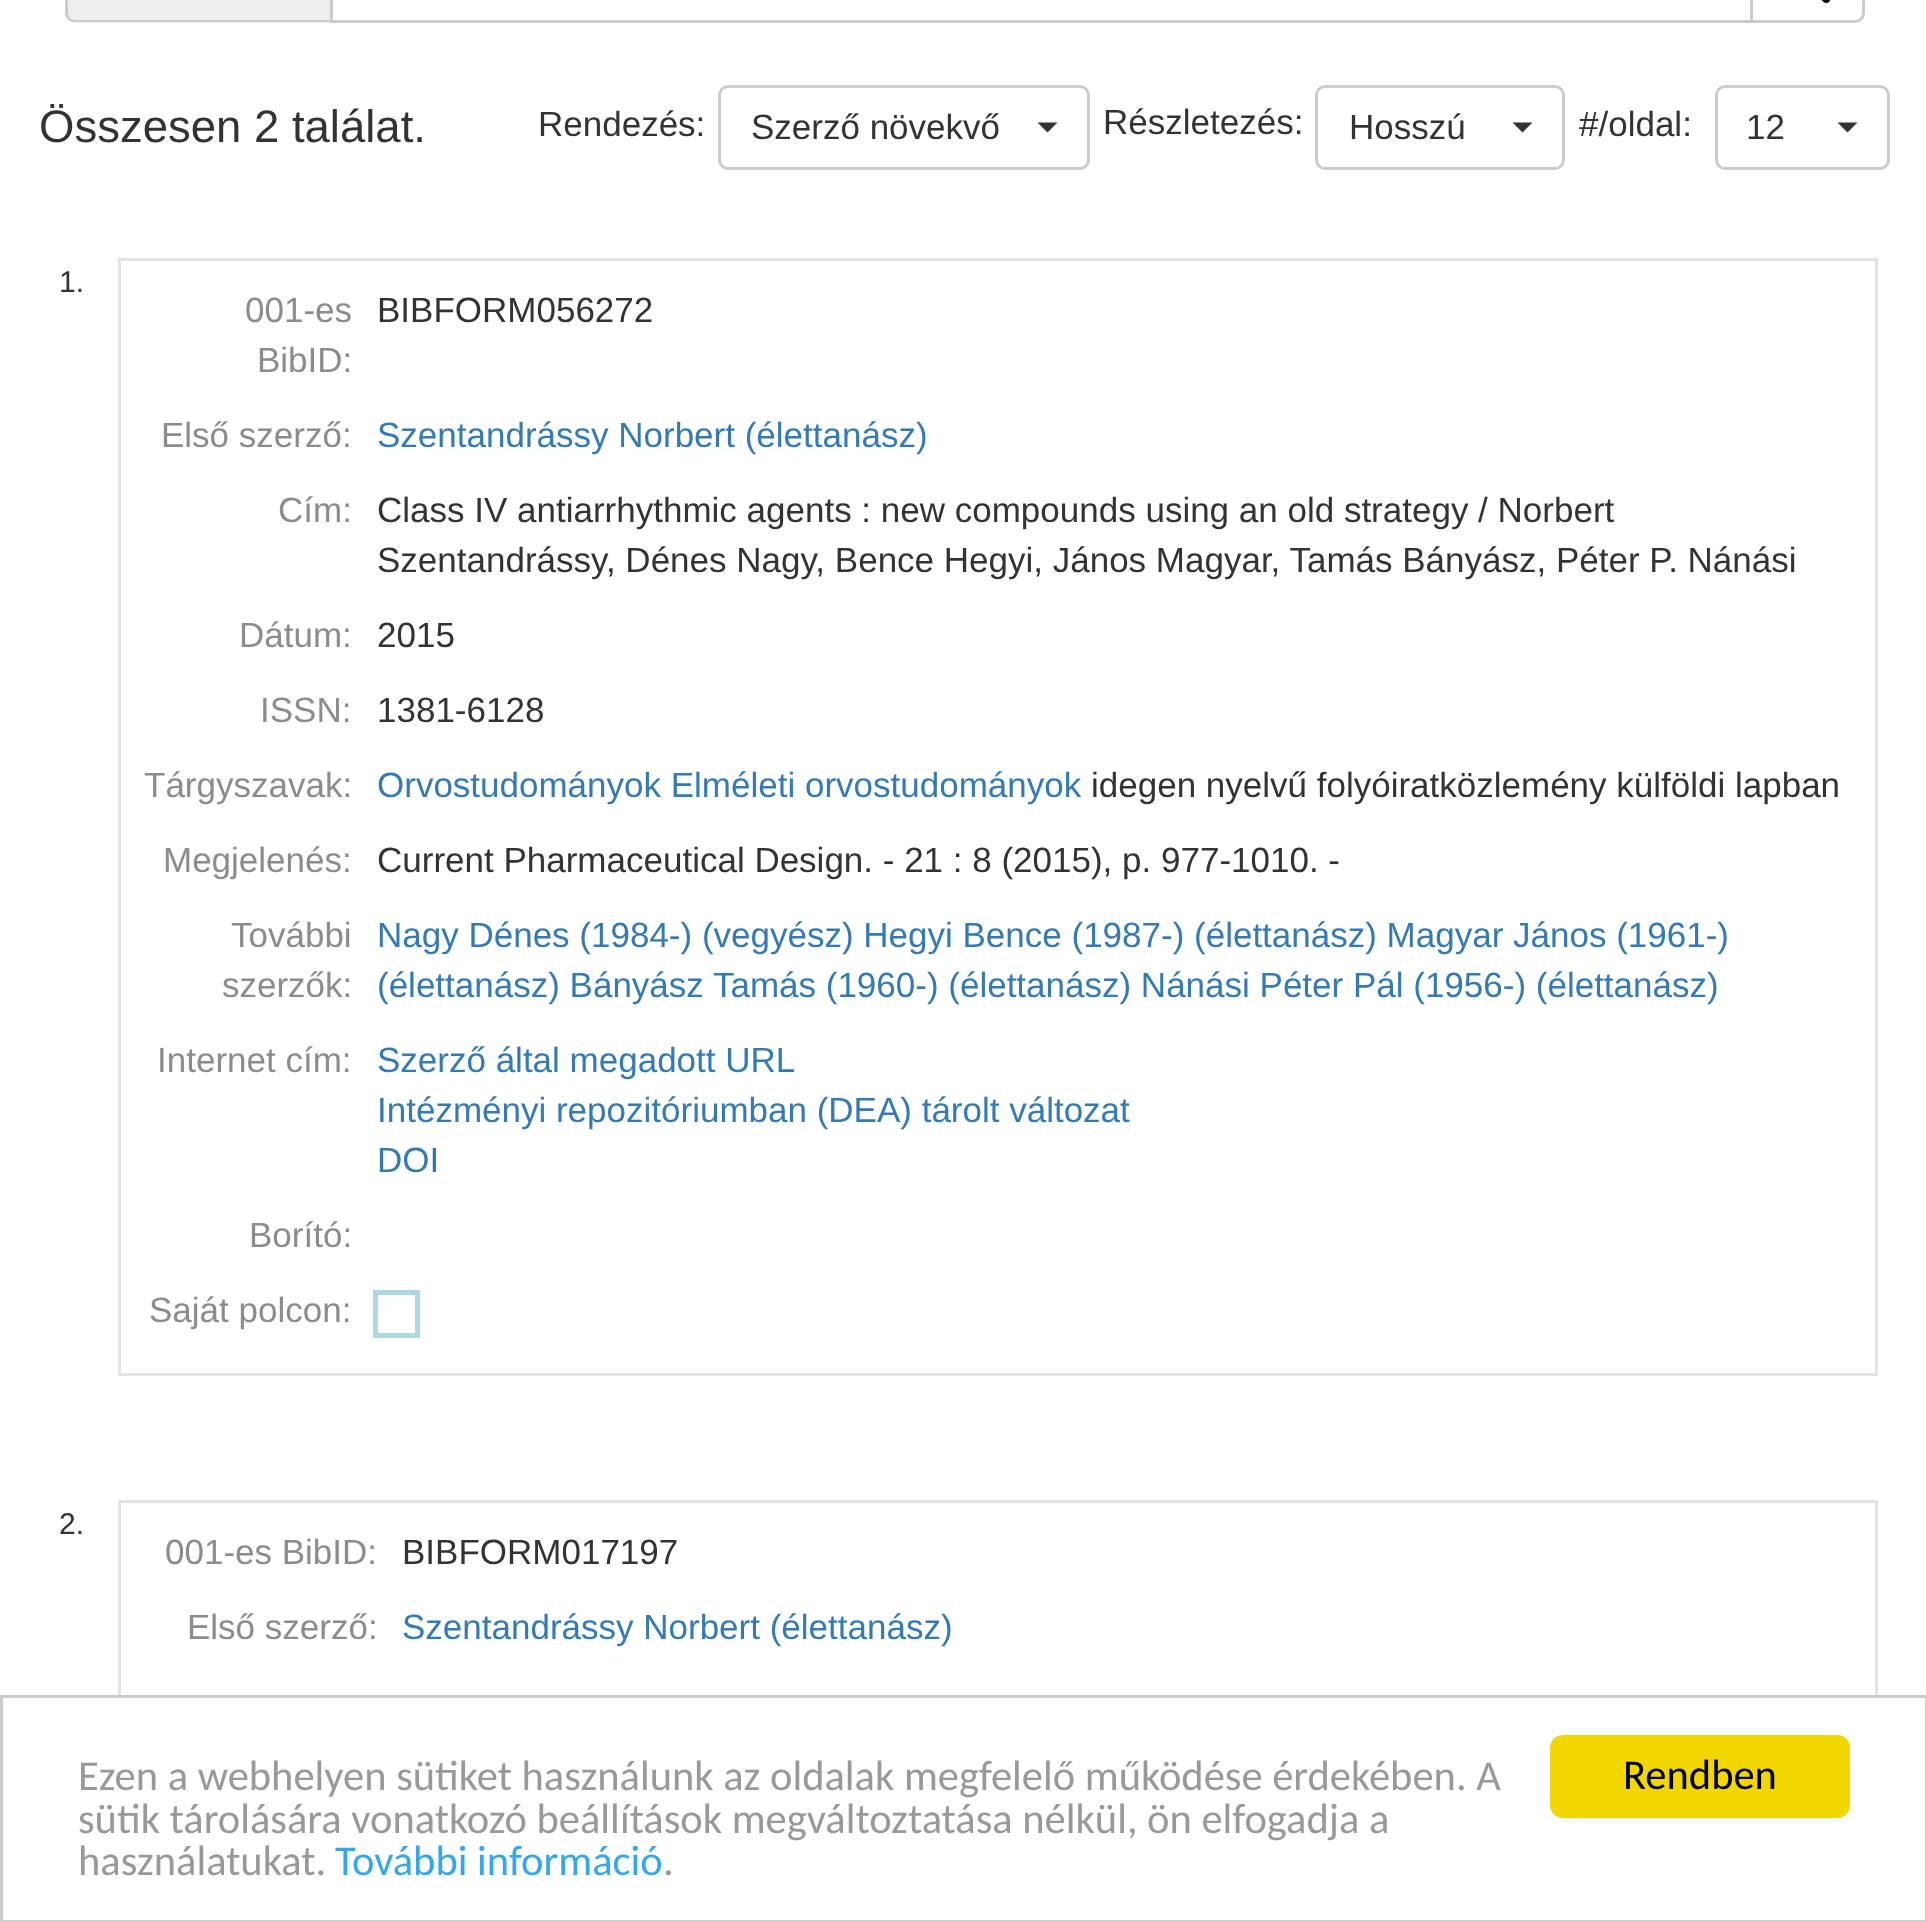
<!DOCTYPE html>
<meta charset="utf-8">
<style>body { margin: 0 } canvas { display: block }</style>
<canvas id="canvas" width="1926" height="1922"></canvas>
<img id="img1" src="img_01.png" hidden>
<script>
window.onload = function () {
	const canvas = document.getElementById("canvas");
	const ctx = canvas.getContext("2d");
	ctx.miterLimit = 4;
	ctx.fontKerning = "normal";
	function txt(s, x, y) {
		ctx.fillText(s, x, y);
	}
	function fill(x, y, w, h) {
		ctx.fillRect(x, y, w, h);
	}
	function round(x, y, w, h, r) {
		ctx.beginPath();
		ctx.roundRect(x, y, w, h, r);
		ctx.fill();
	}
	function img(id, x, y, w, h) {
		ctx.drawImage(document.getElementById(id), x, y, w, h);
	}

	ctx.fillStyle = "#FFFFFF";
	fill(0, 0, 1926, 1922);
	ctx.fillStyle = "#EEEEEE";
	ctx.beginPath();
	ctx.moveTo(75, -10);
	ctx.lineTo(330, -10);
	ctx.lineTo(330, 23);
	ctx.lineTo(75, 23);
	ctx.bezierCurveTo(69.5, 23, 65, 18.5, 65, 13);
	ctx.lineTo(65, 0);
	ctx.bezierCurveTo(65, -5.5, 69.5, -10, 75, -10);
	ctx.closePath();
	ctx.fill();
	ctx.fillStyle = "#CCCCCC";
	ctx.beginPath();
	ctx.moveTo(75, -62);
	ctx.lineTo(330, -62);
	ctx.lineTo(330, 22);
	ctx.lineTo(75, 22);
	ctx.bezierCurveTo(69, 22, 65, 18, 65, 12);
	ctx.lineTo(65, -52);
	ctx.bezierCurveTo(65, -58, 69, -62, 75, -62);
	ctx.closePath();
	ctx.moveTo(75, -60);
	ctx.lineTo(330, -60);
	ctx.lineTo(330, 20);
	ctx.lineTo(75, 20);
	ctx.bezierCurveTo(71, 20, 68, 17, 68, 12);
	ctx.lineTo(68, -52);
	ctx.bezierCurveTo(68, -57, 71, -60, 75, -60);
	ctx.closePath();
	ctx.fill("evenodd");
	ctx.strokeStyle = "#CCCCCC";
	ctx.lineWidth = 3;
	ctx.strokeRect(331.5, -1.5, 1420, 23);
	ctx.fillStyle = "#FFFFFF";
	ctx.beginPath();
	ctx.moveTo(1751.5, -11.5);
	ctx.lineTo(1855, -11.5);
	ctx.bezierCurveTo(1859.5, -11.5, 1863.5, -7.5, 1863.5, -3);
	ctx.lineTo(1863.5, 13);
	ctx.bezierCurveTo(1863.5, 17.5, 1859.5, 21.5, 1855, 21.5);
	ctx.lineTo(1751.5, 21.5);
	ctx.closePath();
	ctx.fill();
	ctx.stroke();
	img("img1", 1821, 0, 10, 4);
	ctx.beginPath();
	ctx.roundRect(719.5, 86.5, 369, 82, 8.5);
	ctx.stroke();
	ctx.fillStyle = "#333333";
	ctx.beginPath();
	ctx.moveTo(1037.5, 122.5);
	ctx.lineTo(1057.5, 122.5);
	ctx.lineTo(1047.5, 132.5);
	ctx.closePath();
	ctx.fill();
	ctx.beginPath();
	ctx.roundRect(1316.5, 86.5, 247, 82, 8.5);
	ctx.stroke();
	ctx.beginPath();
	ctx.moveTo(1512.5, 122.5);
	ctx.lineTo(1532.5, 122.5);
	ctx.lineTo(1522.5, 132.5);
	ctx.closePath();
	ctx.fill();
	ctx.beginPath();
	ctx.roundRect(1716.5, 86.5, 172, 82, 8.5);
	ctx.stroke();
	ctx.beginPath();
	ctx.moveTo(1837.5, 122.5);
	ctx.lineTo(1857.5, 122.5);
	ctx.lineTo(1847.5, 132.5);
	ctx.closePath();
	ctx.fill();
	ctx.fillStyle = "#E3E3E3";
	fill(118, 258, 1760, 3);
	fill(1875, 258, 3, 1117);
	fill(118, 1373, 1760, 3);
	fill(118, 258, 3, 1117);
	ctx.strokeStyle = "#ADD8E6";
	ctx.lineWidth = 5;
	ctx.strokeRect(375.5, 1292.5, 42, 43);
	fill(118, 1500, 1760, 3);
	fill(1875, 1500, 3, 195);
	fill(118, 1500, 3, 195);
	ctx.strokeStyle = "#CCCCCC";
	ctx.lineWidth = 3;
	ctx.strokeRect(1.5, 1696.5, 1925, 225);
	ctx.fillStyle = "#F1D600";
	round(1550, 1735, 300, 83, 13);
	ctx.font = "45.5px Liberation Sans";
	ctx.fillStyle = "#333333";
	txt("Összesen 2 találat.", 39, 142);
	ctx.font = "35px Liberation Sans";
	txt("Rendezés:", 538, 136);
	txt("Szerző növekvő", 751, 139);
	txt("Részletezés:", 1103, 134);
	txt("Hosszú", 1349, 139);
	txt("#/oldal:", 1579, 136);
	txt("12", 1746, 139);
	ctx.font = "30px Liberation Sans";
	txt("1.", 59, 292);
	ctx.font = "35px Liberation Sans";
	ctx.fillStyle = "#8C8C8C";
	txt("001-es", 245, 322);
	txt("BibID:", 257, 372);
	ctx.fillStyle = "#333333";
	txt("BIBFORM056272", 377, 322);
	ctx.fillStyle = "#8C8C8C";
	txt("Első szerző:", 161, 447);
	ctx.fillStyle = "#337AB7";
	txt("Szentandrássy Norbert (élettanász)", 377, 447);
	ctx.fillStyle = "#8C8C8C";
	txt("Cím:", 278, 522);
	ctx.fillStyle = "#333333";
	txt("Class IV antiarrhythmic agents : new compounds using an old strategy / Norbert", 377, 522);
	txt("Szentandrássy, Dénes Nagy, Bence Hegyi, János Magyar, Tamás Bányász, Péter P. Nánási", 377, 572);
	ctx.fillStyle = "#8C8C8C";
	txt("Dátum:", 239, 647);
	ctx.fillStyle = "#333333";
	txt("2015", 377, 647);
	ctx.fillStyle = "#8C8C8C";
	txt("ISSN:", 260, 722);
	ctx.fillStyle = "#333333";
	txt("1381-6128", 377, 722);
	ctx.fillStyle = "#8C8C8C";
	txt("Tárgyszavak:", 144, 797);
	ctx.fillStyle = "#337AB7";
	txt("Orvostudományok Elméleti orvostudományok", 377, 797);
	ctx.fillStyle = "#333333";
	txt("idegen nyelvű folyóiratközlemény külföldi lapban", 1091, 797);
	ctx.fillStyle = "#8C8C8C";
	txt("Megjelenés:", 163, 872);
	ctx.fillStyle = "#333333";
	txt("Current Pharmaceutical Design. - 21 : 8 (2015), p. 977-1010. -", 377, 872);
	ctx.fillStyle = "#8C8C8C";
	txt("További", 231, 947);
	txt("szerzők:", 222, 997);
	ctx.fillStyle = "#337AB7";
	txt("Nagy Dénes (1984-) (vegyész) Hegyi Bence (1987-) (élettanász) Magyar János (1961-)", 377, 947);
	txt("(élettanász) Bányász Tamás (1960-) (élettanász) Nánási Péter Pál (1956-) (élettanász)", 377, 997);
	ctx.fillStyle = "#8C8C8C";
	txt("Internet cím:", 157, 1072);
	ctx.fillStyle = "#337AB7";
	txt("Szerző által megadott URL", 377, 1072);
	txt("Intézményi repozitóriumban (DEA) tárolt változat", 377, 1122);
	txt("DOI", 377, 1172);
	ctx.fillStyle = "#8C8C8C";
	txt("Borító:", 249, 1247);
	txt("Saját polcon:", 149, 1322);
	ctx.font = "30px Liberation Sans";
	ctx.fillStyle = "#333333";
	txt("2.", 59, 1534);
	ctx.font = "35px Liberation Sans";
	ctx.fillStyle = "#8C8C8C";
	txt("001-es BibID:", 165, 1564);
	ctx.fillStyle = "#333333";
	txt("BIBFORM017197", 402, 1564);
	ctx.fillStyle = "#8C8C8C";
	txt("Első szerző:", 187, 1639);
	ctx.fillStyle = "#337AB7";
	txt("Szentandrássy Norbert (élettanász)", 402, 1639);
	ctx.font = "42.5px Carlito";
	ctx.fillStyle = "#999999";
	txt("Ezen a webhelyen sütiket használunk az oldalak megfelelő működése érdekében. A", 78, 1790);
	txt("sütik tárolására vonatkozó beállítások megváltoztatása nélkül, ön elfogadja a", 78, 1833);
	txt("használatukat.", 78, 1875);
	ctx.fillStyle = "#31A8F0";
	txt("További információ", 335, 1875);
	ctx.fillStyle = "#999999";
	txt(".", 663, 1875);
	ctx.fillStyle = "#000000";
	txt("Rendben", 1623, 1789);
};
</script>
